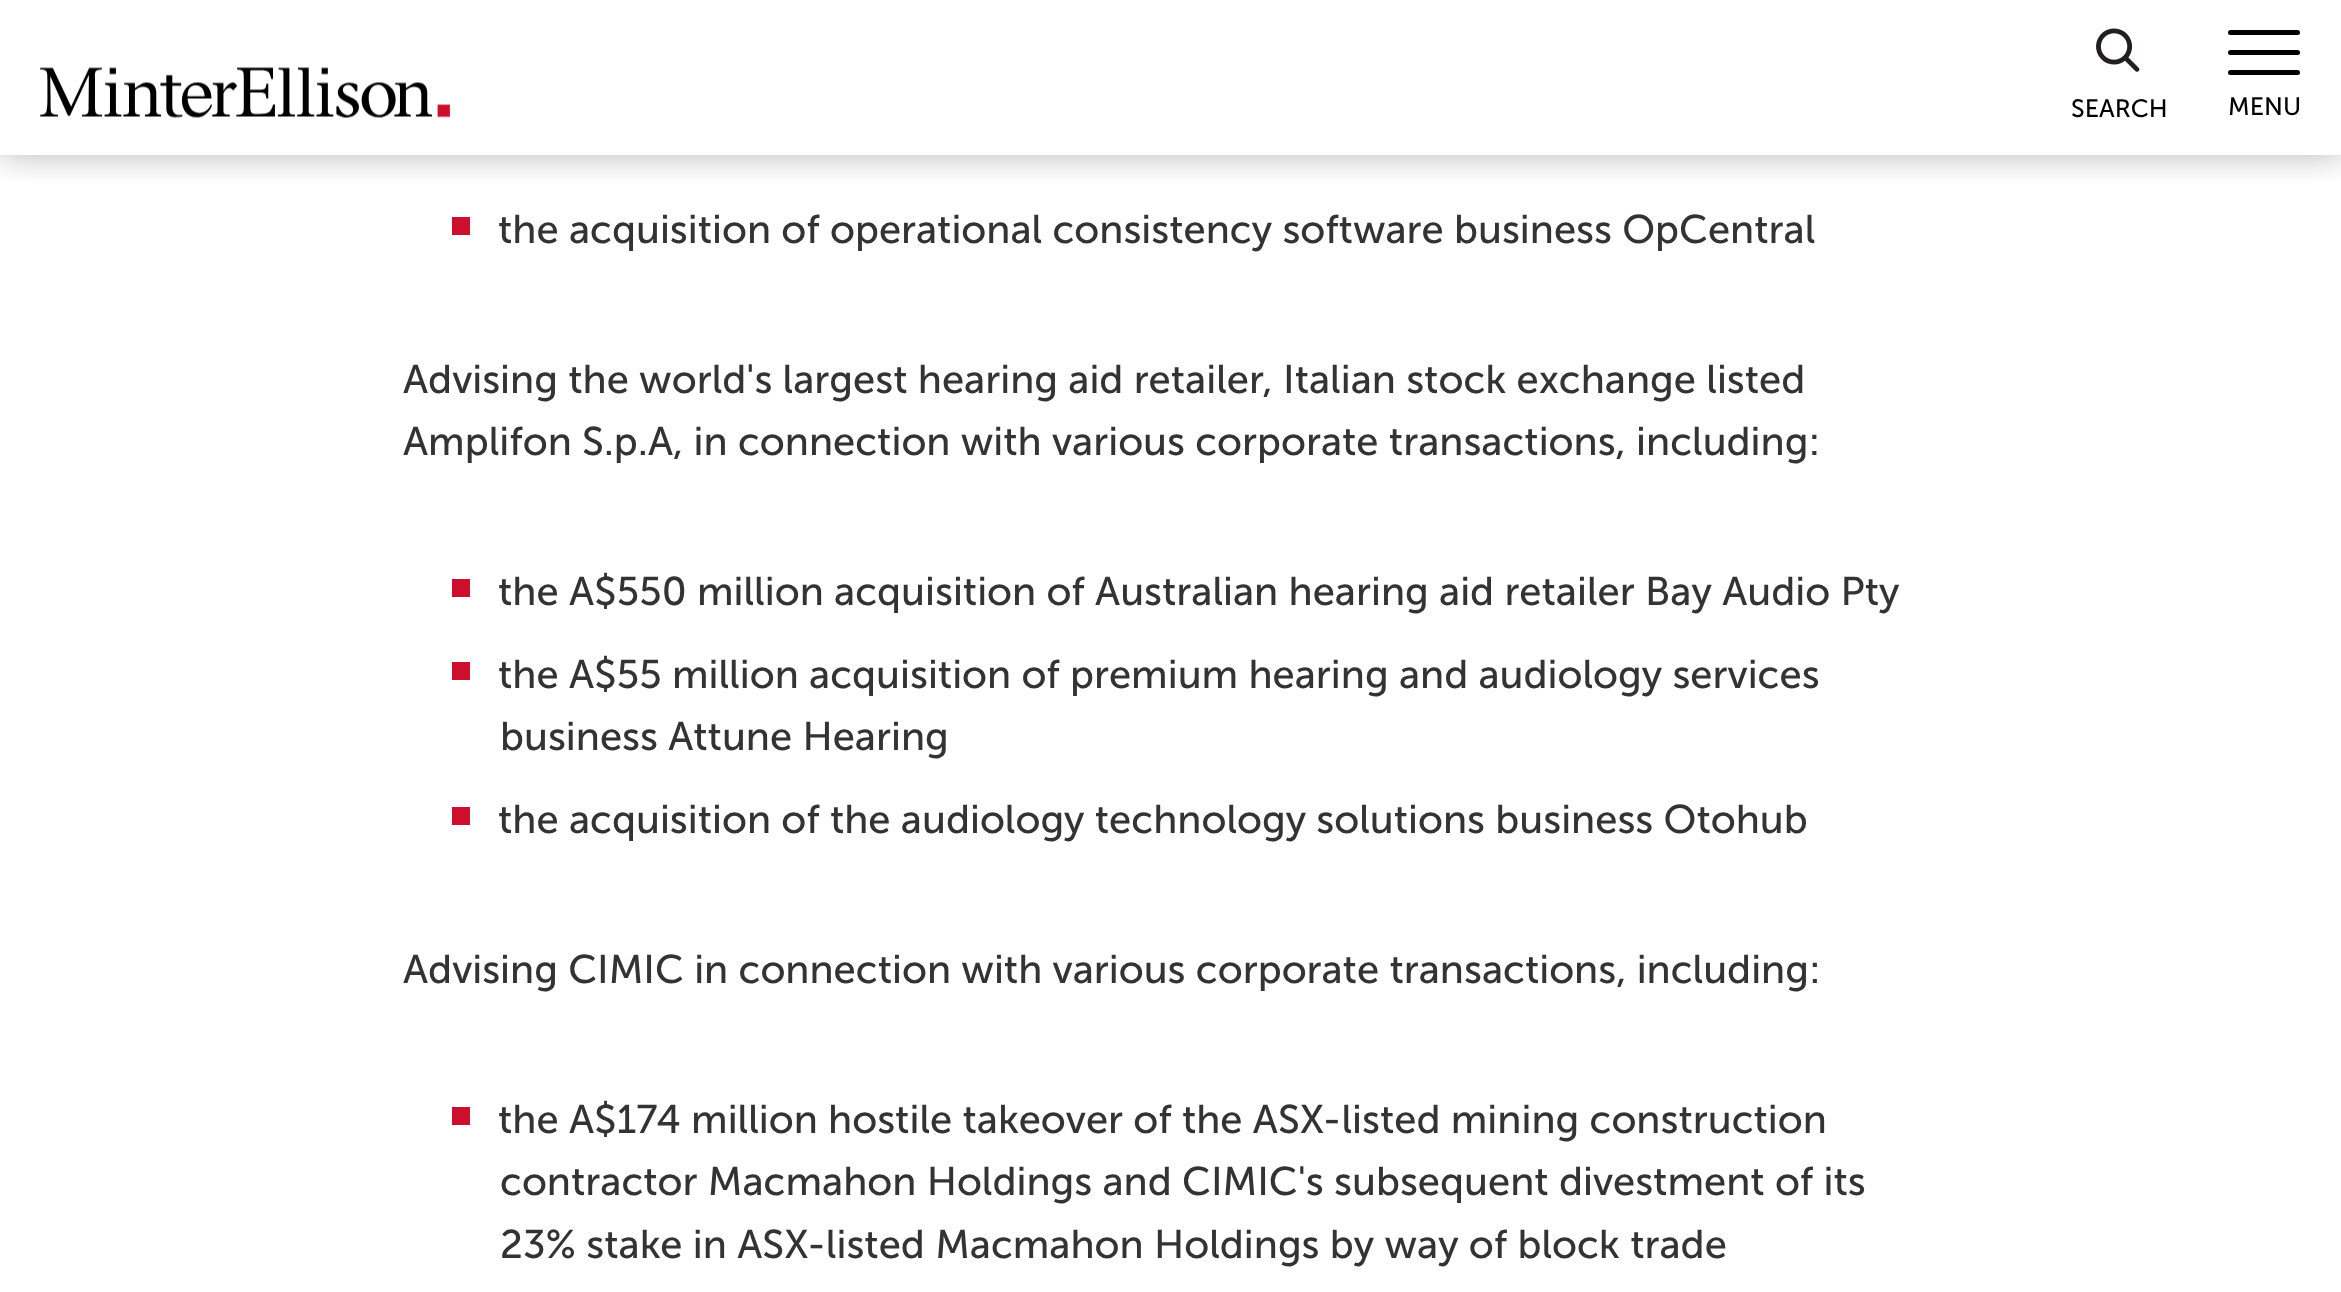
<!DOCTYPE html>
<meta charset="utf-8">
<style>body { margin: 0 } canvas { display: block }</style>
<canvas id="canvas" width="2341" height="1292"></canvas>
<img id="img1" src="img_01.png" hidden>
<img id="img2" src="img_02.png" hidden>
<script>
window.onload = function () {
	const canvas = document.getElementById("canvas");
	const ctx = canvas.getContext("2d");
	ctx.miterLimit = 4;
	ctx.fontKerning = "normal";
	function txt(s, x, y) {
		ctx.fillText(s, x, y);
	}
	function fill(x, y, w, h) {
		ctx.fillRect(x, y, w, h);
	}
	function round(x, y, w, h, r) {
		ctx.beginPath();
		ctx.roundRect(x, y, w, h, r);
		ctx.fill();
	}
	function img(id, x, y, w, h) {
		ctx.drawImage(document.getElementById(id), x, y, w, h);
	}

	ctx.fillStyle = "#FFFFFF";
	fill(0, 0, 2341, 1292);
	ctx.save();
	ctx.beginPath();
	ctx.rect(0, 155, 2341, 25);
	ctx.clip();
	ctx.fillStyle = "rgba(0, 0, 0, 0.32)";
	ctx.filter = "blur(17.5px)";
	ctx.beginPath();
	ctx.rect(0, -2, 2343, 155);
	ctx.fill();
	ctx.filter = "none";
	ctx.restore();
	img("img1", 40, 67, 410, 51);
	img("img2", 2096, 28, 44, 44);
	ctx.fillStyle = "#000000";
	round(2228, 30, 72, 5, 2.5);
	round(2228, 50, 72, 5, 2.5);
	round(2228, 70, 72, 5, 2.5);
	ctx.fillStyle = "#CE0E2D";
	fill(452, 217, 18, 18);
	fill(452, 579, 18, 18);
	fill(452, 662, 18, 18);
	fill(452, 807, 18, 18);
	fill(452, 1107, 18, 18);
	ctx.font = "25px Museo Sans";
	ctx.fillStyle = "#000000";
	txt("SEARCH", 2071, 117);
	txt("MENU", 2228, 115);
	ctx.font = "40px Museo Sans";
	ctx.fillStyle = "#333333";
	txt("the acquisition of operational consistency software business OpCentral", 498, 243);
	txt("Advising the world's largest hearing aid retailer, Italian stock exchange listed", 403, 393);
	txt("Amplifon S.p.A, in connection with various corporate transactions, including:", 403, 455);
	txt("the A$550 million acquisition of Australian hearing aid retailer Bay Audio Pty", 498, 605);
	txt("the A$55 million acquisition of premium hearing and audiology services", 498, 688);
	txt("business Attune Hearing", 500, 750);
	txt("the acquisition of the audiology technology solutions business Otohub", 498, 833);
	txt("Advising CIMIC in connection with various corporate transactions, including:", 403, 983);
	txt("the A$174 million hostile takeover of the ASX-listed mining construction", 498, 1133);
	txt("contractor Macmahon Holdings and CIMIC's subsequent divestment of its", 500, 1195);
	txt("23% stake in ASX-listed Macmahon Holdings by way of block trade", 500, 1258);
};
</script>
